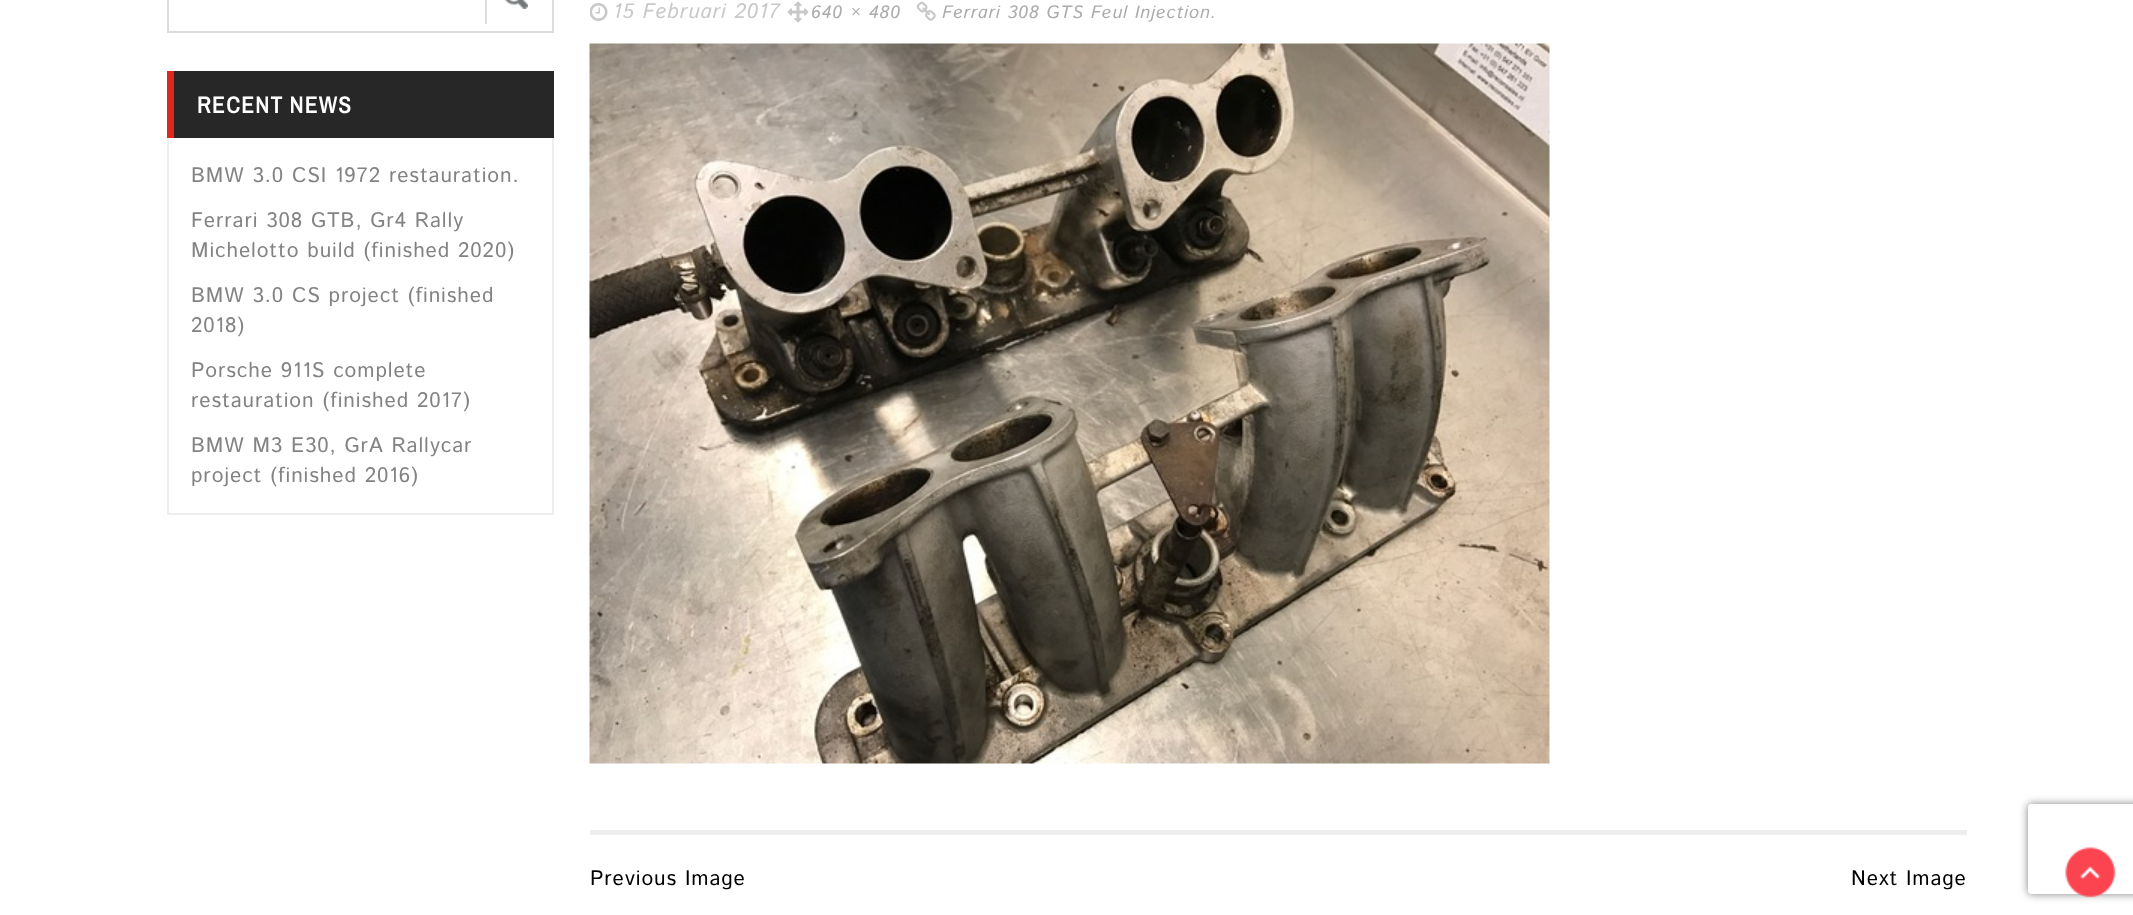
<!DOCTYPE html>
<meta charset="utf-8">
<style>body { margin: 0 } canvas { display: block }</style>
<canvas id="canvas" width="2133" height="915"></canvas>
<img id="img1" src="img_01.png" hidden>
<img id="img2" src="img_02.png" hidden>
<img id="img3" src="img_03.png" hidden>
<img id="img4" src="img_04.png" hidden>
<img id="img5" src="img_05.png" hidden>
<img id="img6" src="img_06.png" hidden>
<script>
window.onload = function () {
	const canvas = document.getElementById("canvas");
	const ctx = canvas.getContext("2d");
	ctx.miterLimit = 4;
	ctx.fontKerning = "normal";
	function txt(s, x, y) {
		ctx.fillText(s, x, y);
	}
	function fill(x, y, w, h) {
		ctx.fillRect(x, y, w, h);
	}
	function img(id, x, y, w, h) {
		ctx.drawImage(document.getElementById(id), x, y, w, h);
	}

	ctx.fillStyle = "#FFFFFF";
	fill(0, 0, 2133, 915);
	ctx.strokeStyle = "#DCDCDC";
	ctx.lineWidth = 2;
	ctx.strokeRect(168, -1, 385, 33);
	img("img1", 504, 0, 24, 9);
	ctx.fillStyle = "#DCDCDC";
	fill(485, 0, 2, 24);
	ctx.fillStyle = "#272727";
	fill(174, 71, 380, 67);
	ctx.fillStyle = "#E1261C";
	fill(167, 71, 7, 67);
	ctx.fillStyle = "#EEEEEE";
	fill(552, 138, 2, 377);
	fill(167, 513, 387, 2);
	fill(167, 138, 2, 377);
	img("img2", 590, 3, 18, 18);
	img("img3", 787, 1, 22, 22);
	img("img4", 916, 1, 20, 20);
	img("img5", 589, 43, 961, 721);
	fill(590, 830, 1377, 5);
	ctx.save();
	ctx.beginPath();
	ctx.moveTo(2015, 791);
	ctx.lineTo(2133, 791);
	ctx.lineTo(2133, 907);
	ctx.lineTo(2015, 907);
	ctx.closePath();
	ctx.moveTo(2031, 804);
	ctx.lineTo(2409, 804);
	ctx.bezierCurveTo(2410.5, 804, 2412, 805.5, 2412, 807);
	ctx.lineTo(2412, 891);
	ctx.bezierCurveTo(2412, 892.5, 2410.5, 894, 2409, 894);
	ctx.lineTo(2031, 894);
	ctx.bezierCurveTo(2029.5, 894, 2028, 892.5, 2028, 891);
	ctx.lineTo(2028, 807);
	ctx.bezierCurveTo(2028, 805.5, 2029.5, 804, 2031, 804);
	ctx.closePath();
	ctx.clip("evenodd");
	ctx.fillStyle = "#808080";
	ctx.filter = "blur(4px)";
	ctx.beginPath();
	ctx.roundRect(2028, 804, 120, 90, 3);
	ctx.fill();
	ctx.filter = "none";
	ctx.restore();
	img("img6", 2065, 847, 51, 51);
	ctx.letterSpacing = "0.9px";
	ctx.font = "600 24px Archivo Narrow";
	ctx.fillStyle = "#FFFFFF";
	txt("RECENT NEWS", 197, 113);
	ctx.font = "21px Istok Web";
	ctx.fillStyle = "#838383";
	txt("BMW 3.0 CSI 1972 restauration.", 191, 182);
	txt("Ferrari 308 GTB, Gr4 Rally", 191, 227);
	txt("Michelotto build (finished 2020)", 191, 257);
	txt("BMW 3.0 CS project (finished", 191, 302);
	txt("2018)", 191, 332);
	txt("Porsche 911S complete", 191, 377);
	txt("restauration (finished 2017)", 191, 407);
	txt("BMW M3 E30, GrA Rallycar", 191, 452);
	txt("project (finished 2016)", 191, 482);
	ctx.font = "italic 21px Istok Web";
	ctx.fillStyle = "#C9C9C9";
	txt("15 Februari 2017", 613, 18);
	ctx.font = "italic 18px Istok Web";
	ctx.fillStyle = "#ACACAC";
	txt("640 × 480", 811, 18);
	txt("Ferrari 308 GTS Feul Injection.", 942, 18);
	ctx.font = "21px Istok Web";
	ctx.fillStyle = "#000000";
	txt("Previous Image", 590, 885);
	txt("Next Image", 1851, 885);
};
</script>
